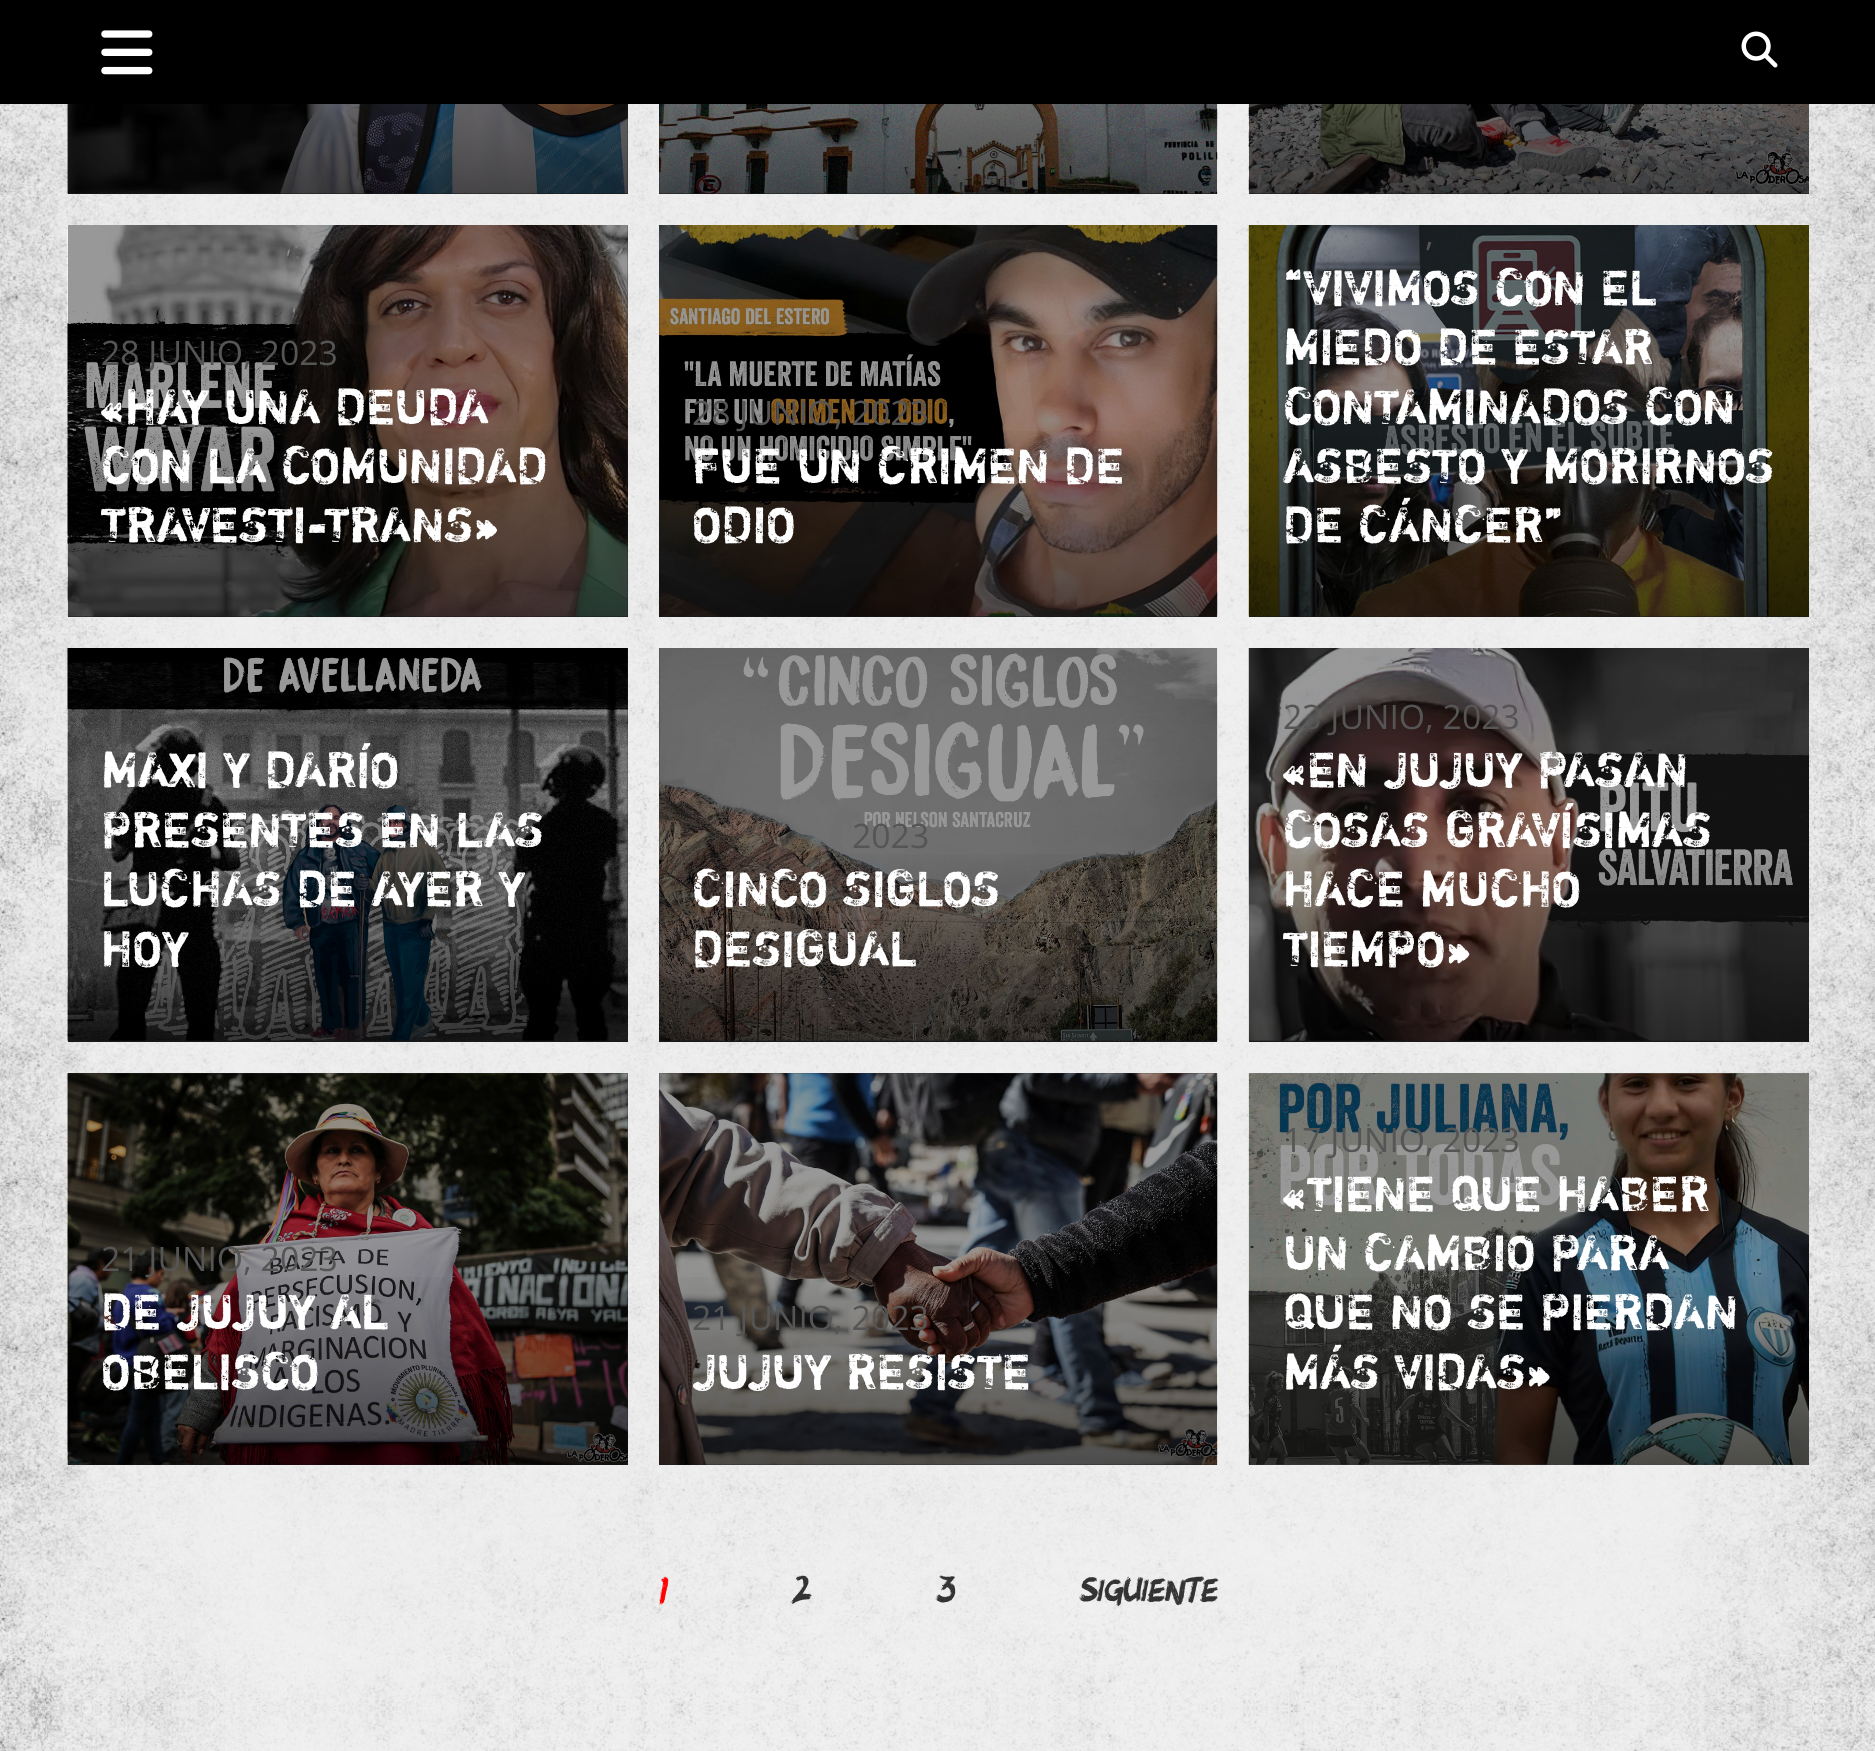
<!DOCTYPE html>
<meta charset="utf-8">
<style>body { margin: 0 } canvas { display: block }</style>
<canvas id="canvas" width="1875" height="1751"></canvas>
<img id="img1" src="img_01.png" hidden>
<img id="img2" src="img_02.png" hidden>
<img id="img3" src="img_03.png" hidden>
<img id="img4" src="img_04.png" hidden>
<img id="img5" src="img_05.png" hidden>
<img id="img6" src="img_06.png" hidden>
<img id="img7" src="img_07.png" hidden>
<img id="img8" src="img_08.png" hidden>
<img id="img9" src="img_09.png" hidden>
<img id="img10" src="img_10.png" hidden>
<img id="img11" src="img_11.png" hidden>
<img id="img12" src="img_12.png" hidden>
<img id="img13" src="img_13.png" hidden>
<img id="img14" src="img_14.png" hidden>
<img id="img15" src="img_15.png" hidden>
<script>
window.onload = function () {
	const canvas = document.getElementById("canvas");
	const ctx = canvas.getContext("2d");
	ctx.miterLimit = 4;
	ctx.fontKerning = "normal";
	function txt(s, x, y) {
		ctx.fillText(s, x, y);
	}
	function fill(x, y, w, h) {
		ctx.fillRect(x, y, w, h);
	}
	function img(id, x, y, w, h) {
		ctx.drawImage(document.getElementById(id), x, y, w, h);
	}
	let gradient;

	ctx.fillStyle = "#FFFFFF";
	fill(0, 0, 1875, 1751);
	img("img1", 0, 104, 1875, 1647);
	ctx.fillStyle = "#000000";
	fill(0, 0, 1875, 104);
	img("img2", 101, 30, 52, 45);
	img("img3", 1741, 31, 37, 37);
	ctx.fillStyle = "#555555";
	fill(68, 104, 560, 90);
	img("img4", 67, 104, 561, 90);
	gradient = ctx.createLinearGradient(347, -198, 347, 196);
	gradient.addColorStop(0.5, "rgba(0, 0, 0, 0)");
	gradient.addColorStop(1, "rgba(0, 0, 0, 0.5)");
	ctx.fillStyle = gradient;
	fill(68, 104, 560, 90);
	ctx.fillStyle = "rgba(0, 0, 0, 0.4)";
	fill(68, 104, 560, 90);
	ctx.fillStyle = "#555555";
	fill(659, 104, 558, 90);
	img("img5", 659, 104, 559, 90);
	gradient = ctx.createLinearGradient(938, -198, 938, 196);
	gradient.addColorStop(0.5, "rgba(0, 0, 0, 0)");
	gradient.addColorStop(1, "rgba(0, 0, 0, 0.5)");
	ctx.fillStyle = gradient;
	fill(659, 104, 558, 90);
	ctx.fillStyle = "rgba(0, 0, 0, 0.4)";
	fill(659, 104, 558, 90);
	ctx.fillStyle = "#555555";
	fill(1249, 193, 560, 1);
	img("img6", 1248, 104, 561, 90);
	gradient = ctx.createLinearGradient(1529, -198, 1529, 196);
	gradient.addColorStop(0.5, "rgba(0, 0, 0, 0)");
	gradient.addColorStop(1, "rgba(0, 0, 0, 0.5)");
	ctx.fillStyle = gradient;
	fill(1249, 104, 560, 90);
	ctx.fillStyle = "rgba(0, 0, 0, 0.4)";
	fill(1249, 104, 560, 90);
	ctx.fillStyle = "#555555";
	fill(68, 225, 560, 392);
	img("img7", 67, 225, 561, 392);
	gradient = ctx.createLinearGradient(347, 225, 347, 619);
	gradient.addColorStop(0.5, "rgba(0, 0, 0, 0)");
	gradient.addColorStop(1, "rgba(0, 0, 0, 0.5)");
	ctx.fillStyle = gradient;
	fill(68, 431, 560, 186);
	ctx.fillStyle = "rgba(0, 0, 0, 0.4)";
	fill(68, 225, 560, 392);
	ctx.fillStyle = "#555555";
	fill(659, 225, 558, 392);
	img("img8", 659, 225, 559, 392);
	gradient = ctx.createLinearGradient(938, 225, 938, 619);
	gradient.addColorStop(0.5, "rgba(0, 0, 0, 0)");
	gradient.addColorStop(1, "rgba(0, 0, 0, 0.5)");
	ctx.fillStyle = gradient;
	fill(659, 431, 558, 186);
	ctx.fillStyle = "rgba(0, 0, 0, 0.4)";
	fill(659, 225, 558, 392);
	ctx.fillStyle = "#555555";
	fill(1249, 616, 560, 1);
	img("img9", 1248, 225, 561, 392);
	gradient = ctx.createLinearGradient(1529, 225, 1529, 619);
	gradient.addColorStop(0.5, "rgba(0, 0, 0, 0)");
	gradient.addColorStop(1, "rgba(0, 0, 0, 0.5)");
	ctx.fillStyle = gradient;
	fill(1249, 431, 560, 186);
	ctx.fillStyle = "rgba(0, 0, 0, 0.4)";
	fill(1249, 225, 560, 392);
	ctx.fillStyle = "#555555";
	fill(68, 648, 560, 394);
	img("img10", 67, 648, 561, 393);
	gradient = ctx.createLinearGradient(347, 648, 347, 1042);
	gradient.addColorStop(0.5, "rgba(0, 0, 0, 0)");
	gradient.addColorStop(1, "rgba(0, 0, 0, 0.5)");
	ctx.fillStyle = gradient;
	fill(68, 854, 560, 188);
	ctx.fillStyle = "rgba(0, 0, 0, 0.4)";
	fill(68, 648, 560, 394);
	ctx.fillStyle = "#555555";
	fill(659, 648, 558, 394);
	img("img11", 659, 648, 559, 393);
	gradient = ctx.createLinearGradient(938, 648, 938, 1042);
	gradient.addColorStop(0.5, "rgba(0, 0, 0, 0)");
	gradient.addColorStop(1, "rgba(0, 0, 0, 0.5)");
	ctx.fillStyle = gradient;
	fill(659, 854, 558, 188);
	ctx.fillStyle = "rgba(0, 0, 0, 0.4)";
	fill(659, 648, 558, 394);
	ctx.fillStyle = "#555555";
	fill(1249, 1040, 560, 2);
	img("img12", 1248, 648, 561, 393);
	gradient = ctx.createLinearGradient(1529, 648, 1529, 1042);
	gradient.addColorStop(0.5, "rgba(0, 0, 0, 0)");
	gradient.addColorStop(1, "rgba(0, 0, 0, 0.5)");
	ctx.fillStyle = gradient;
	fill(1249, 854, 560, 188);
	ctx.fillStyle = "rgba(0, 0, 0, 0.4)";
	fill(1249, 648, 560, 394);
	ctx.fillStyle = "#555555";
	fill(68, 1073, 560, 392);
	img("img13", 67, 1073, 561, 392);
	gradient = ctx.createLinearGradient(347, 1071, 347, 1465);
	gradient.addColorStop(0.5, "rgba(0, 0, 0, 0)");
	gradient.addColorStop(1, "rgba(0, 0, 0, 0.5)");
	ctx.fillStyle = gradient;
	fill(68, 1277, 560, 188);
	ctx.fillStyle = "rgba(0, 0, 0, 0.4)";
	fill(68, 1073, 560, 392);
	ctx.fillStyle = "#555555";
	fill(659, 1073, 558, 392);
	img("img14", 659, 1073, 559, 392);
	gradient = ctx.createLinearGradient(938, 1071, 938, 1465);
	gradient.addColorStop(0.5, "rgba(0, 0, 0, 0)");
	gradient.addColorStop(1, "rgba(0, 0, 0, 0.5)");
	ctx.fillStyle = gradient;
	fill(659, 1277, 558, 188);
	ctx.fillStyle = "rgba(0, 0, 0, 0.4)";
	fill(659, 1073, 558, 392);
	img("img15", 1248, 1073, 561, 392);
	gradient = ctx.createLinearGradient(1529, 1071, 1529, 1465);
	gradient.addColorStop(0.5, "rgba(0, 0, 0, 0)");
	gradient.addColorStop(1, "rgba(0, 0, 0, 0.5)");
	ctx.fillStyle = gradient;
	fill(1249, 1277, 560, 188);
	ctx.fillStyle = "rgba(0, 0, 0, 0.4)";
	fill(1249, 1073, 560, 392);
	ctx.font = "33.75px Open Sans";
	ctx.fillStyle = "#555555";
	txt("28 JUNIO, 2023", 101, 365);
	ctx.font = "49.5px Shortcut";
	ctx.fillStyle = "#FFFFFF";
	txt("«HAY UNA DEUDA", 101, 424);
	txt("CON LA COMUNIDAD", 101, 483);
	txt("TRAVESTI-TRANS»", 101, 542);
	ctx.font = "33.75px Open Sans";
	ctx.fillStyle = "#555555";
	txt("28 JUNIO, 2023", 692, 425);
	ctx.font = "49.5px Shortcut";
	ctx.fillStyle = "#FFFFFF";
	txt("FUE UN CRIMEN DE", 692, 483);
	txt("ODIO", 692, 542);
	ctx.font = "33.75px Open Sans";
	ctx.fillStyle = "#555555";
	txt(",", 1425, 246);
	ctx.font = "49.5px Shortcut";
	ctx.fillStyle = "#FFFFFF";
	txt("“VIVIMOS CON EL", 1283, 305);
	txt("MIEDO DE ESTAR", 1283, 364);
	txt("CONTAMINADOS CON", 1283, 424);
	txt("ASBESTO Y MORIRNOS", 1283, 483);
	txt("DE CÁNCER”", 1283, 542);
	txt("MAXI Y DARÍO", 101, 787);
	txt("PRESENTES EN LAS", 101, 847);
	txt("LUCHAS DE AYER Y", 101, 906);
	txt("HOY", 101, 966);
	ctx.font = "33.75px Open Sans";
	ctx.fillStyle = "#555555";
	txt("2023", 852, 848);
	ctx.font = "49.5px Shortcut";
	ctx.fillStyle = "#FFFFFF";
	txt("CINCO SIGLOS", 692, 906);
	txt("DESIGUAL", 692, 966);
	ctx.font = "33.75px Open Sans";
	ctx.fillStyle = "#555555";
	txt("23 JUNIO, 2023", 1283, 729);
	ctx.font = "49.5px Shortcut";
	ctx.fillStyle = "#FFFFFF";
	txt("«EN JUJUY PASAN", 1283, 787);
	txt("COSAS GRAVÍSIMAS", 1283, 847);
	txt("HACE MUCHO", 1283, 906);
	txt("TIEMPO»", 1283, 966);
	ctx.font = "33.75px Open Sans";
	ctx.fillStyle = "#555555";
	txt("21 JUNIO, 2023", 101, 1271);
	ctx.font = "49.5px Shortcut";
	ctx.fillStyle = "#FFFFFF";
	txt("DE JUJUY AL", 101, 1329);
	txt("OBELISCO", 101, 1389);
	ctx.font = "33.75px Open Sans";
	ctx.fillStyle = "#555555";
	txt("21 JUNIO, 2023", 692, 1330);
	ctx.font = "49.5px Shortcut";
	ctx.fillStyle = "#FFFFFF";
	txt("JUJUY RESISTE", 692, 1389);
	ctx.font = "33.75px Open Sans";
	ctx.fillStyle = "#555555";
	txt("17 JUNIO, 2023", 1283, 1152);
	ctx.font = "49.5px Shortcut";
	ctx.fillStyle = "#FFFFFF";
	txt("«TIENE QUE HABER", 1283, 1211);
	txt("UN CAMBIO PARA", 1283, 1270);
	txt("QUE NO SE PIERDAN", 1283, 1329);
	txt("MÁS VIDAS»", 1283, 1389);
	ctx.font = "33.75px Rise";
	ctx.fillStyle = "#FF0000";
	txt("1", 659, 1601);
	ctx.fillStyle = "#333333";
	txt("2", 794, 1601);
	txt("3", 937, 1601);
	txt("Siguiente", 1081, 1601);
};
</script>
